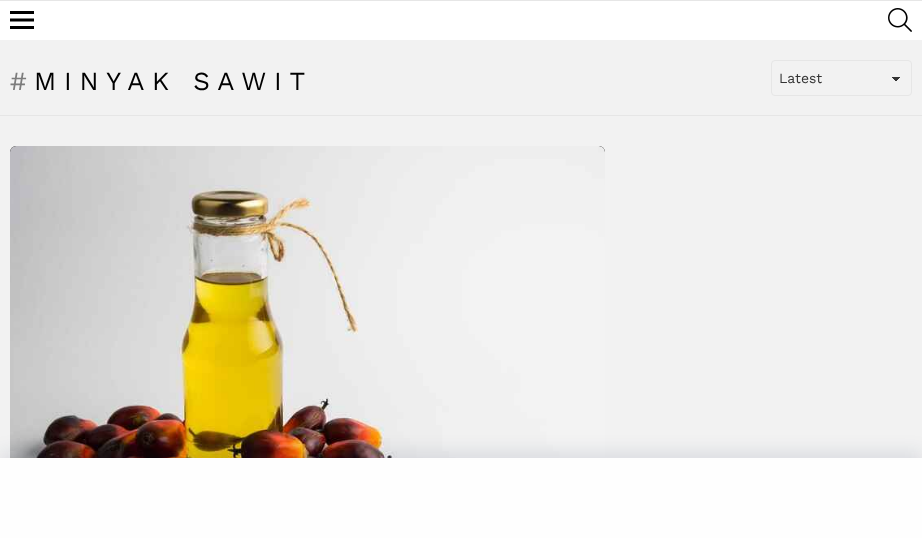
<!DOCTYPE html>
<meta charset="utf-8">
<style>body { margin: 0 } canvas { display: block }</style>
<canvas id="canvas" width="922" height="538"></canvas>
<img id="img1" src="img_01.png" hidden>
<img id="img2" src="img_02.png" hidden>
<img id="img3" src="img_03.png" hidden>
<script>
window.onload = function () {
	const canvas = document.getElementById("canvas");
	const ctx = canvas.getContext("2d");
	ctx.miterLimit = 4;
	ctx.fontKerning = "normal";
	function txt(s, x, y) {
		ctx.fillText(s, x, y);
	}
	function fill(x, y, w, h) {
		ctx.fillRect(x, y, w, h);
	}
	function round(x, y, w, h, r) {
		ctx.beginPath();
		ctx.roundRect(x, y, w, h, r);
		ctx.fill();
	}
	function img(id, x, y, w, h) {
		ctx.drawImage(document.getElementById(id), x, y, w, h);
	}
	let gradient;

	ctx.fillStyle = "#FFFFFF";
	fill(0, 0, 922, 538);
	ctx.fillStyle = "#E6E6E6";
	fill(0, 0, 922, 1);
	img("img1", 10, 11, 24, 18);
	img("img2", 888, 8, 24, 24);
	ctx.fillStyle = "#F2F2F2";
	fill(0, 40, 922, 75);
	ctx.fillStyle = "#E6E6E6";
	fill(0, 115, 922, 1);
	gradient = ctx.createLinearGradient(896, 77, 901, 81);
	gradient.addColorStop(0.5, "#333333");
	gradient.addColorStop(0.5, "#F2F2F2");
	ctx.fillStyle = gradient;
	fill(896, 77, 5, 4);
	gradient = ctx.createLinearGradient(891, 81, 896, 77);
	gradient.addColorStop(0.5, "#F2F2F2");
	gradient.addColorStop(0.5, "#333333");
	ctx.fillStyle = gradient;
	fill(891, 77, 5, 4);
	ctx.beginPath();
	ctx.roundRect(771.5, 60.5, 140, 35, 3.5);
	ctx.strokeStyle = "#E6E6E6";
	ctx.stroke();
	ctx.fillStyle = "#F2F2F2";
	fill(0, 116, 922, 342);
	ctx.fillStyle = "#333333";
	round(10, 146, 595, 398, 6);
	img("img3", 10, 146, 595, 312);
	ctx.fillStyle = "rgba(9, 32, 76, 0.1)";
	ctx.filter = "blur(9px)";
	ctx.beginPath();
	ctx.rect(0, 452, 922, 80);
	ctx.fill();
	ctx.filter = "none";
	ctx.fillStyle = "#FEFEFE";
	fill(0, 458, 922, 80);
	ctx.letterSpacing = "7.75px";
	ctx.font = "26px Work Sans";
	ctx.fillStyle = "#7C7C7C";
	txt("#", 10, 90);
	ctx.fillStyle = "#000000";
	txt("MINYAK SAWIT", 34, 90);
	ctx.letterSpacing = "0px";
	ctx.font = "14px Work Sans";
	ctx.fillStyle = "#333333";
	txt("Latest", 779, 83);
};
</script>
